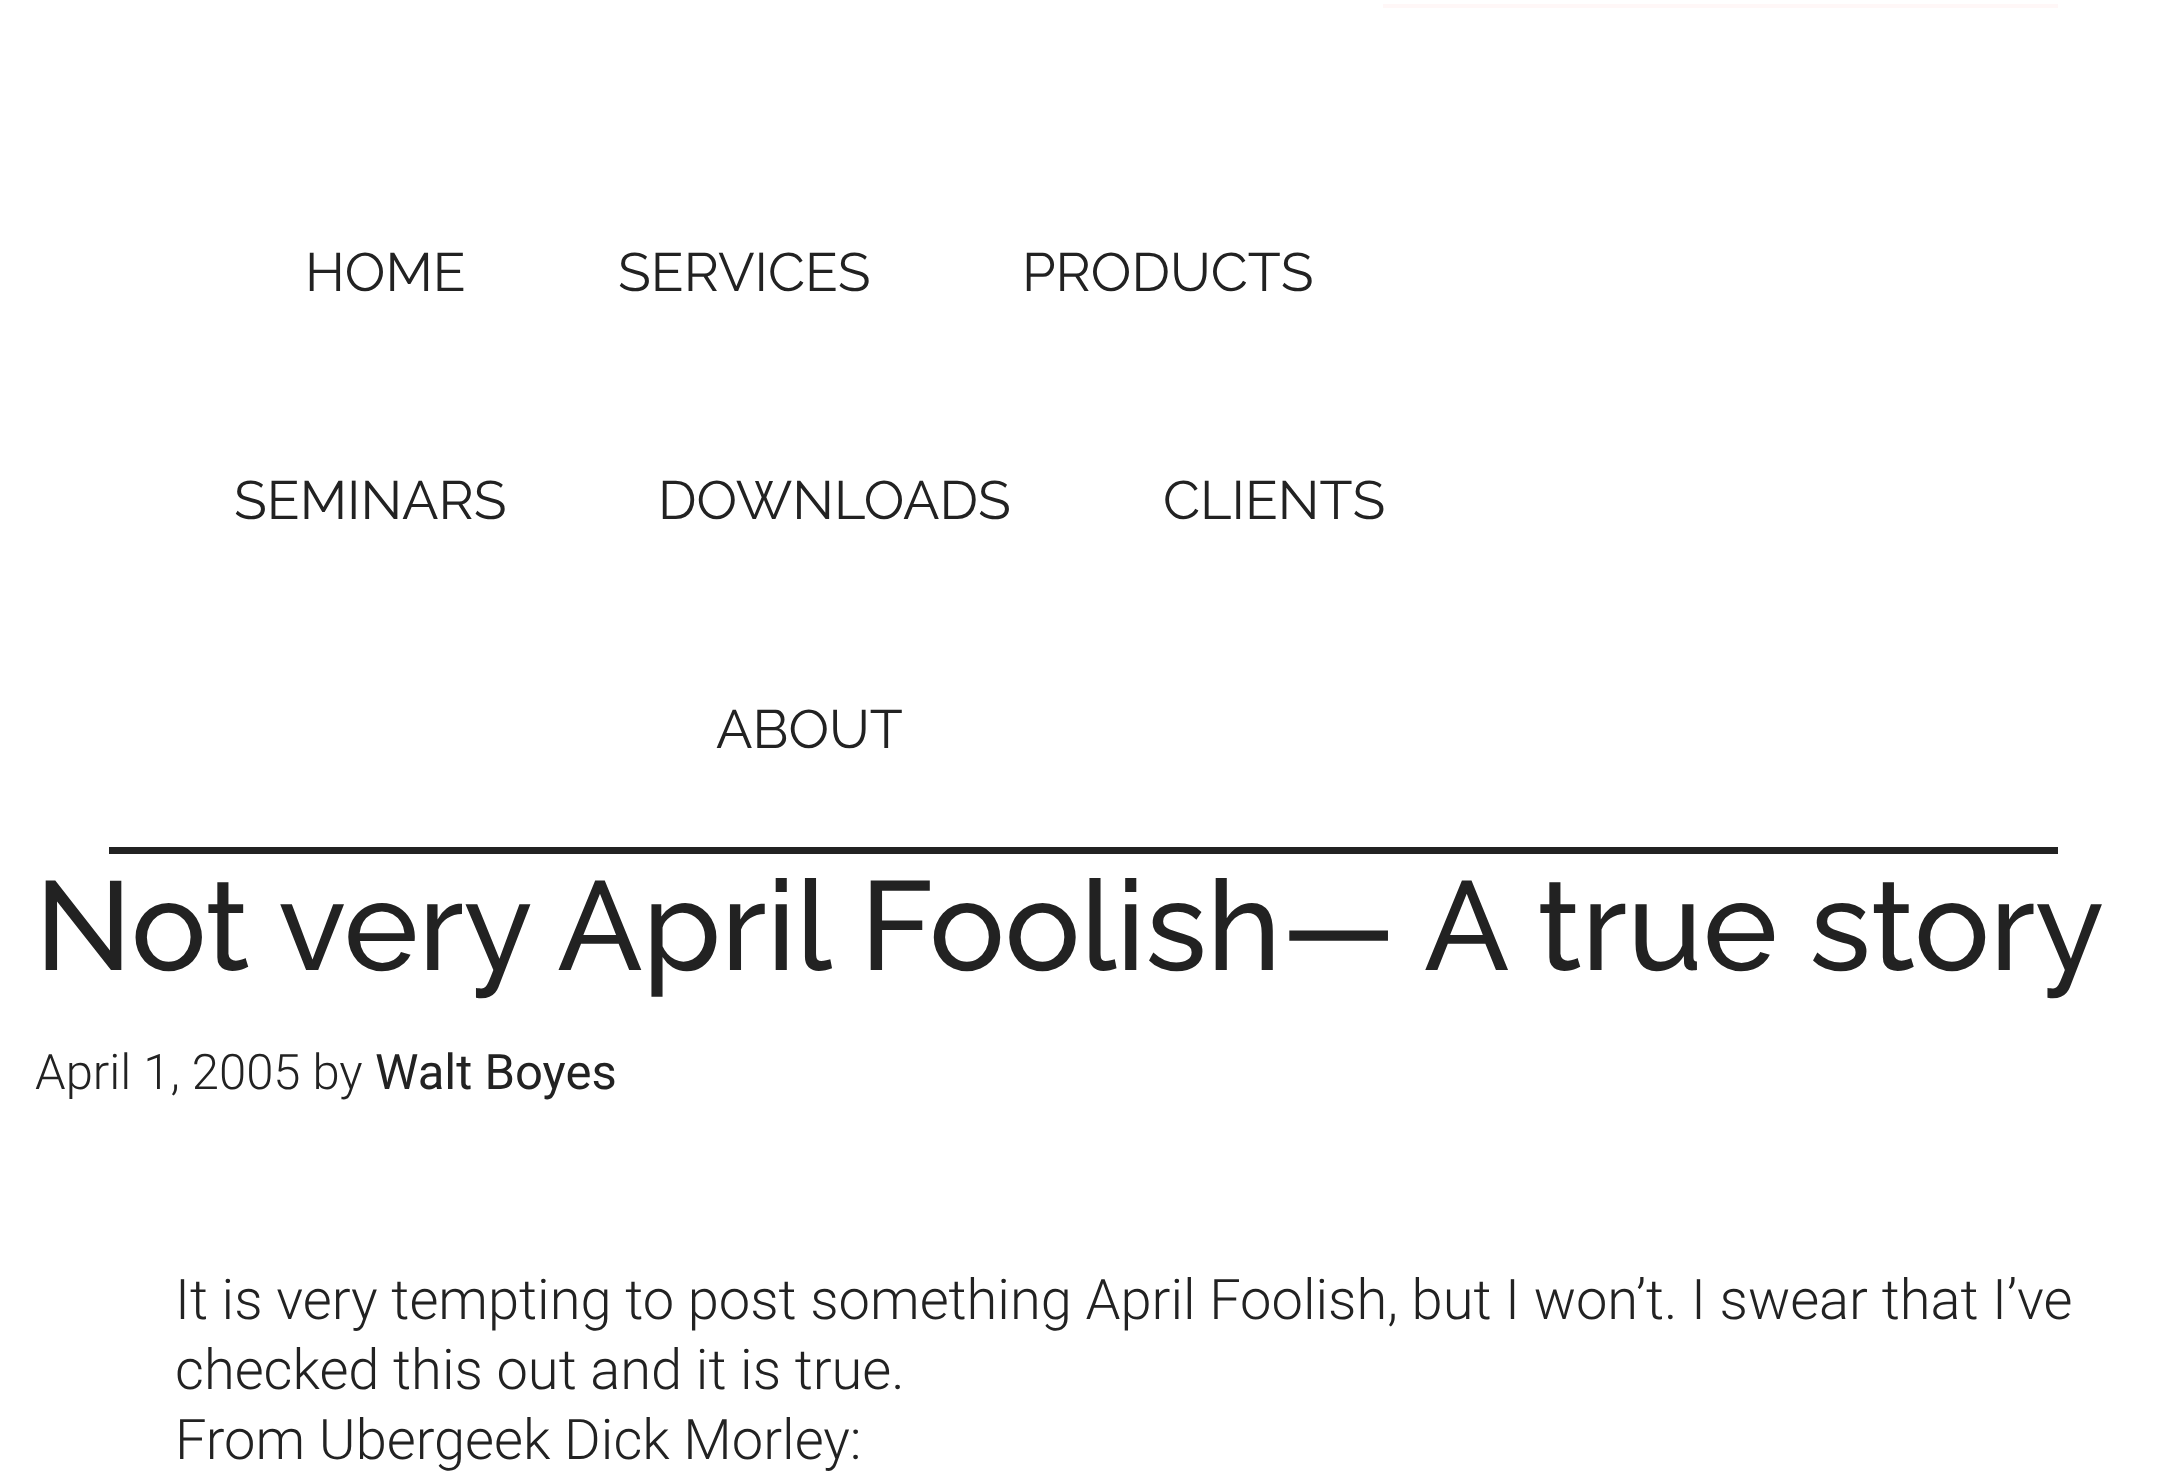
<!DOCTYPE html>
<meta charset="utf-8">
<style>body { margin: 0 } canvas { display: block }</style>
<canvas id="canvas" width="2166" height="1475"></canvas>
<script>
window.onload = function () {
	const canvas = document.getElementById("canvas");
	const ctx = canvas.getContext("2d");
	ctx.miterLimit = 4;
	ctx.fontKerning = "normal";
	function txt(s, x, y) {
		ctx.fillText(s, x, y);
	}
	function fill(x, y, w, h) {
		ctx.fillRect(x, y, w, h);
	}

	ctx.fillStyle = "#FFFFFF";
	fill(0, 0, 2166, 1475);
	ctx.fillStyle = "#222222";
	fill(109, 847, 1949, 7);
	ctx.fillStyle = "#FFF7F7";
	fill(1383, 4, 675, 4);
	ctx.font = "54px Raleway";
	ctx.fillStyle = "#222222";
	txt("HOME", 305, 291);
	txt("SERVICES", 618, 291);
	txt("PRODUCTS", 1022, 291);
	txt("SEMINARS", 234, 519);
	txt("DOWNLOADS", 658, 519);
	txt("CLIENTS", 1163, 519);
	txt("ABOUT", 716, 748);
	ctx.font = "500 126px Raleway";
	txt("Not very April Foolish— A true story", 35, 970);
	ctx.font = "300 49px Roboto";
	txt("April 1, 2005 by", 35, 1089);
	ctx.font = "49px Roboto";
	txt("Walt Boyes", 375, 1089);
	ctx.font = "300 56px Roboto";
	txt("It is very tempting to post something April Foolish, but I won’t. I swear that I’ve", 175, 1319);
	txt("checked this out and it is true.", 175, 1389);
	txt("From Ubergeek Dick Morley:", 175, 1459);
};
</script>
